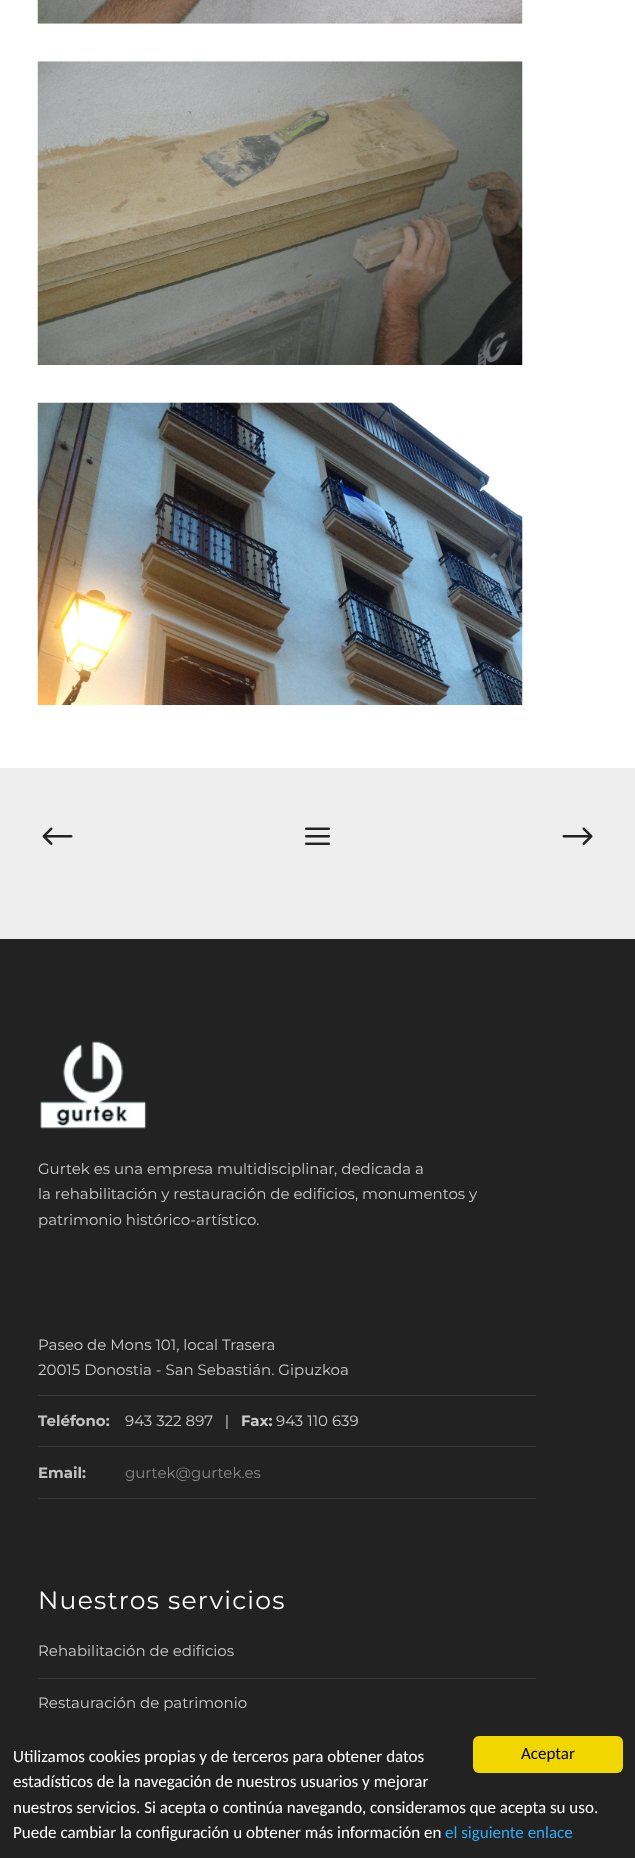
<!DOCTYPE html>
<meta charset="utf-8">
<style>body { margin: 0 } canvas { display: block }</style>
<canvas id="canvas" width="635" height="1858"></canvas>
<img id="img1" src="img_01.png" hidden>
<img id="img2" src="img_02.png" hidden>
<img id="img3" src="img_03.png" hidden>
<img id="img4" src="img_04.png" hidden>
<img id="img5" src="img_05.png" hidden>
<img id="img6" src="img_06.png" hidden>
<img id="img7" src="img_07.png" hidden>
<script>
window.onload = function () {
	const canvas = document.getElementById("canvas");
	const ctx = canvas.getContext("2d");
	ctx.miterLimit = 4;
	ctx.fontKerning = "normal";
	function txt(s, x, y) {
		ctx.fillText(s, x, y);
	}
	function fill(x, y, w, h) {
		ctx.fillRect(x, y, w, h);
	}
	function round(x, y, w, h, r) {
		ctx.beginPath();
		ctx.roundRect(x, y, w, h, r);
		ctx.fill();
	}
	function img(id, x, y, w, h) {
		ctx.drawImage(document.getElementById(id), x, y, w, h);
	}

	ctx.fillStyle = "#222222";
	fill(0, 0, 635, 1858);
	ctx.fillStyle = "#FFFFFF";
	fill(0, 0, 635, 768);
	img("img1", 37, 0, 486, 24);
	img("img2", 37, 61, 486, 304);
	img("img3", 37, 402, 486, 303);
	ctx.fillStyle = "#EEEEEE";
	fill(0, 768, 635, 171);
	img("img4", 42, 827, 31, 18);
	img("img5", 562, 827, 31, 18);
	img("img6", 305, 827, 25, 18);
	img("img7", 40, 1041, 107, 88);
	ctx.fillStyle = "#383838";
	fill(38, 1395, 498, 1);
	fill(38, 1446, 498, 1);
	fill(38, 1498, 498, 1);
	fill(38, 1678, 498, 1);
	ctx.fillStyle = "#F1D600";
	round(473, 1736, 150, 37, 6);
	ctx.font = "15px Montserrat";
	ctx.fillStyle = "#CCCCCC";
	txt("Gurtek es una empresa multidisciplinar, dedicada a", 38, 1174);
	txt("la rehabilitación y restauración de edificios, monumentos y", 38, 1199);
	txt("patrimonio histórico-artístico.", 38, 1225);
	txt("Paseo de Mons 101, local Trasera", 38, 1350);
	txt("20015 Donostia - San Sebastián. Gipuzkoa", 38, 1375);
	ctx.font = "bold 15px Montserrat";
	ctx.fillStyle = "#C3C3C3";
	txt("Teléfono:", 38, 1426);
	ctx.font = "15px Montserrat";
	ctx.fillStyle = "#CCCCCC";
	txt("943 322 897   |", 125, 1426);
	ctx.font = "bold 15px Montserrat";
	txt("Fax:", 241, 1426);
	ctx.font = "15px Montserrat";
	txt("943 110 639", 276, 1426);
	ctx.font = "bold 15px Montserrat";
	ctx.fillStyle = "#C3C3C3";
	txt("Email:", 38, 1478);
	ctx.font = "15px Montserrat";
	ctx.fillStyle = "#888888";
	txt("gurtek@gurtek.es", 125, 1478);
	ctx.letterSpacing = "1.25px";
	ctx.font = "25px Montserrat";
	ctx.fillStyle = "#FFFFFF";
	txt("Nuestros servicios", 38, 1609);
	ctx.letterSpacing = "0px";
	ctx.font = "15px Montserrat";
	ctx.fillStyle = "#CCCCCC";
	txt("Rehabilitación de edificios", 38, 1656);
	txt("Restauración de patrimonio", 38, 1708);
	ctx.font = "17px Carlito";
	ctx.fillStyle = "#000000";
	txt("Aceptar", 521, 1759);
	ctx.fillStyle = "#FFFFFF";
	txt("Utilizamos cookies propias y de terceros para obtener datos", 13, 1762);
	txt("estadísticos de la navegación de nuestros usuarios y mejorar", 13, 1787);
	txt("nuestros servicios. Si acepta o continúa navegando, consideramos que acepta su uso.", 13, 1813);
	txt("Puede cambiar la configuración u obtener más información en", 13, 1838);
	ctx.fillStyle = "#31A8F0";
	txt("el siguiente enlace", 445, 1838);
};
</script>
